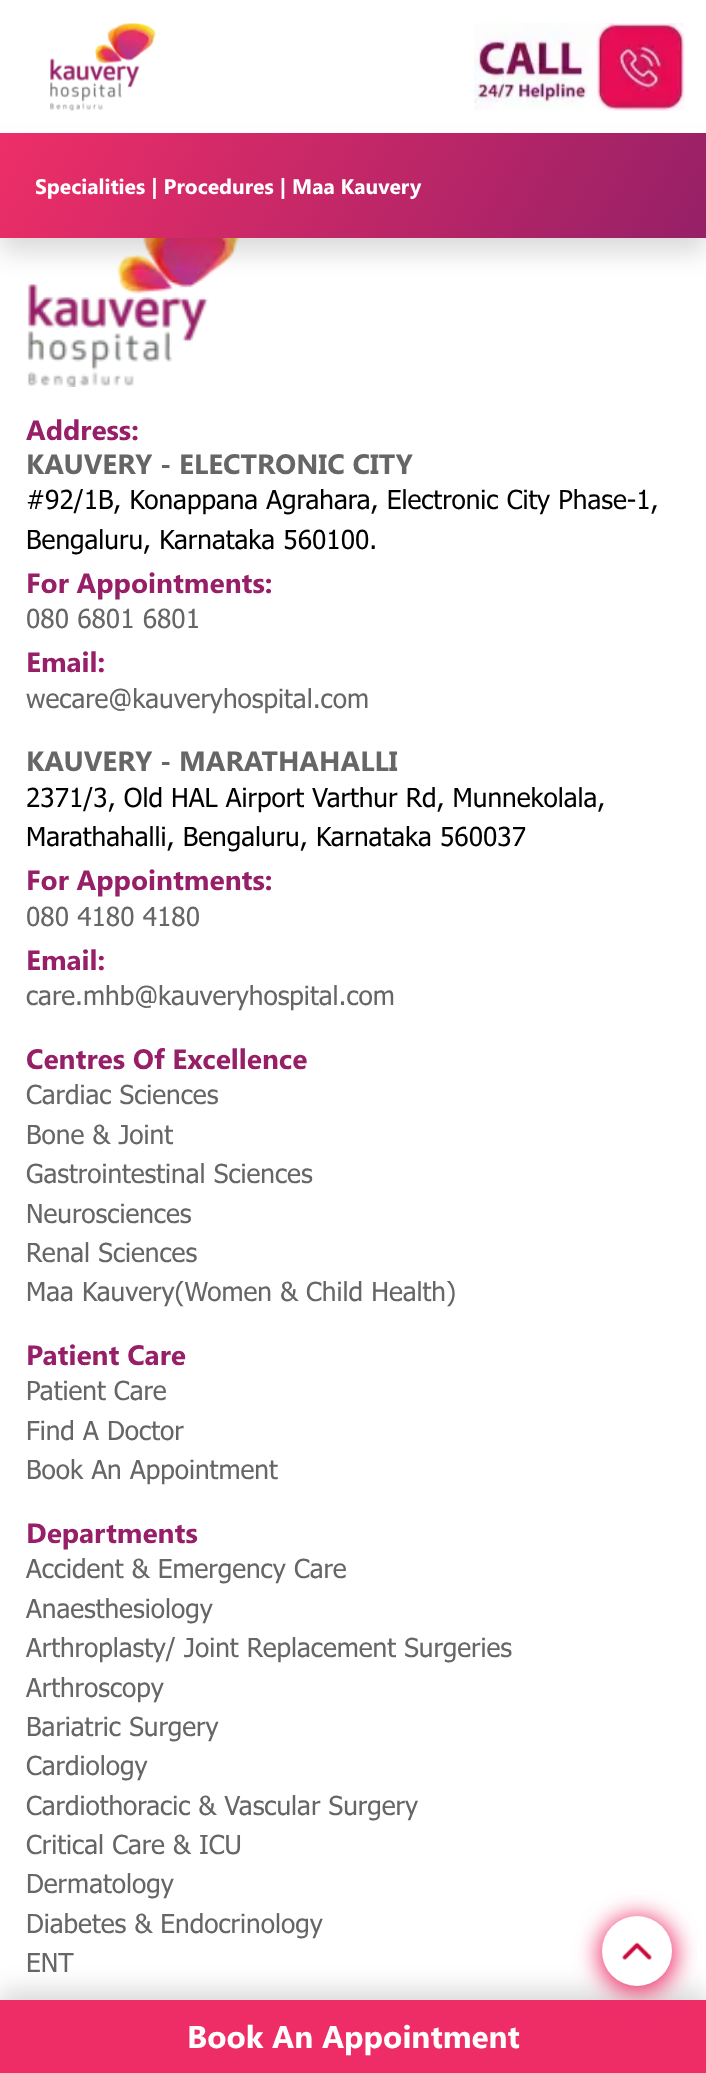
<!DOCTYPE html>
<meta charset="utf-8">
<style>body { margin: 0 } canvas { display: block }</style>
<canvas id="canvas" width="706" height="2073"></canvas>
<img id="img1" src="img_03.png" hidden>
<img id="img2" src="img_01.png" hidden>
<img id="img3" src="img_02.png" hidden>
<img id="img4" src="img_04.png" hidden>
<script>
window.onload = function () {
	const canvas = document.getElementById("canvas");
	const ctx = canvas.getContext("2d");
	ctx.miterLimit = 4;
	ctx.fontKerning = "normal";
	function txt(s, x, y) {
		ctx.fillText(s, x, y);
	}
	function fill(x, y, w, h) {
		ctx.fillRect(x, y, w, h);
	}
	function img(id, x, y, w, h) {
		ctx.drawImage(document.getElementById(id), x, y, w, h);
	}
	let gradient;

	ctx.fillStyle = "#FFFFFF";
	fill(0, 0, 706, 2073);
	img("img1", 27, 238, 213, 149);
	ctx.fillStyle = "rgba(0, 0, 0, 0.15)";
	ctx.filter = "blur(13px)";
	ctx.beginPath();
	ctx.rect(0, 147, 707, 105);
	ctx.fill();
	ctx.filter = "none";
	ctx.fillStyle = "#FFFFFF";
	fill(0, 128, 706, 5);
	img("img2", 50, 23, 106, 88);
	img("img3", 474, 23, 211, 88);
	gradient = ctx.createLinearGradient(66, 19, 641, 352);
	gradient.addColorStop(0, "#EE2E68");
	gradient.addColorStop(1, "#962067");
	ctx.fillStyle = gradient;
	fill(0, 133, 706, 105);
	ctx.fillStyle = "rgba(0, 0, 0, 0.15)";
	ctx.filter = "blur(12px)";
	ctx.beginPath();
	ctx.rect(0, 1990, 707, 73);
	ctx.fill();
	ctx.filter = "none";
	ctx.fillStyle = "#EE2D67";
	fill(0, 2000, 706, 73);
	ctx.filter = "blur(11.5px)";
	ctx.beginPath();
	ctx.roundRect(599, 1916, 77, 77, 38.5);
	ctx.fill();
	ctx.filter = "none";
	ctx.fillStyle = "#FFFFFF";
	ctx.beginPath();
	ctx.arc(637, 1951, 35, 0, Math.PI * 2);
	ctx.fill();
	img("img4", 622, 1942, 30, 18);
	ctx.font = "bold 21px Segoe UI";
	txt("Specialities | Procedures | Maa Kauvery", 35, 194);
	ctx.font = "bold 28px Segoe UI";
	ctx.fillStyle = "#961F67";
	txt("Address:", 26, 440);
	ctx.fillStyle = "#666666";
	txt("KAUVERY - ELECTRONIC CITY", 26, 474);
	ctx.font = "26.25px Tahoma";
	ctx.fillStyle = "#000000";
	txt("#92/1B, Konappana Agrahara, Electronic City Phase-1,", 26, 509);
	txt("Bengaluru, Karnataka 560100.", 26, 549);
	ctx.font = "bold 28px Segoe UI";
	ctx.fillStyle = "#961F67";
	txt("For Appointments:", 26, 593);
	ctx.font = "26.25px Tahoma";
	ctx.fillStyle = "#666666";
	txt("080 6801 6801", 26, 628);
	ctx.font = "bold 28px Segoe UI";
	ctx.fillStyle = "#961F67";
	txt("Email:", 26, 672);
	ctx.font = "26.25px Tahoma";
	ctx.fillStyle = "#666666";
	txt("wecare@kauveryhospital.com", 26, 708);
	ctx.font = "bold 28px Segoe UI";
	txt("KAUVERY - MARATHAHALLI", 26, 771);
	ctx.font = "26.25px Tahoma";
	ctx.fillStyle = "#000000";
	txt("2371/3, Old HAL Airport Varthur Rd, Munnekolala,", 26, 807);
	txt("Marathahalli, Bengaluru, Karnataka 560037", 26, 846);
	ctx.font = "bold 28px Segoe UI";
	ctx.fillStyle = "#961F67";
	txt("For Appointments:", 26, 890);
	ctx.font = "26.25px Tahoma";
	ctx.fillStyle = "#666666";
	txt("080 4180 4180", 26, 926);
	ctx.font = "bold 28px Segoe UI";
	ctx.fillStyle = "#961F67";
	txt("Email:", 26, 970);
	ctx.font = "26.25px Tahoma";
	ctx.fillStyle = "#666666";
	txt("care.mhb@kauveryhospital.com", 26, 1005);
	ctx.font = "bold 28px Segoe UI";
	ctx.fillStyle = "#961F67";
	txt("Centres Of Excellence", 26, 1069);
	ctx.font = "26.25px Tahoma";
	ctx.fillStyle = "#666666";
	txt("Cardiac Sciences", 26, 1104);
	txt("Bone & Joint", 26, 1144);
	txt("Gastrointestinal Sciences", 26, 1183);
	txt("Neurosciences", 26, 1223);
	txt("Renal Sciences", 26, 1262);
	txt("Maa Kauvery(Women & Child Health)", 26, 1301);
	ctx.font = "bold 28px Segoe UI";
	ctx.fillStyle = "#961F67";
	txt("Patient Care", 26, 1365);
	ctx.font = "26.25px Tahoma";
	ctx.fillStyle = "#666666";
	txt("Patient Care", 26, 1400);
	txt("Find A Doctor", 26, 1440);
	txt("Book An Appointment", 26, 1479);
	ctx.font = "bold 28px Segoe UI";
	ctx.fillStyle = "#961F67";
	txt("Departments", 26, 1543);
	ctx.font = "26.25px Tahoma";
	ctx.fillStyle = "#666666";
	txt("Accident & Emergency Care", 26, 1578);
	txt("Anaesthesiology", 26, 1618);
	txt("Arthroplasty/ Joint Replacement Surgeries", 26, 1657);
	txt("Arthroscopy", 26, 1697);
	txt("Bariatric Surgery", 26, 1736);
	txt("Cardiology", 26, 1775);
	txt("Cardiothoracic & Vascular Surgery", 26, 1815);
	txt("Critical Care & ICU", 26, 1854);
	txt("Dermatology", 26, 1893);
	txt("Diabetes & Endocrinology", 26, 1933);
	txt("ENT", 26, 1972);
	ctx.font = "bold 31.5px Segoe UI";
	ctx.fillStyle = "#FFFFFF";
	txt("Book An Appointment", 187, 2048);
};
</script>
